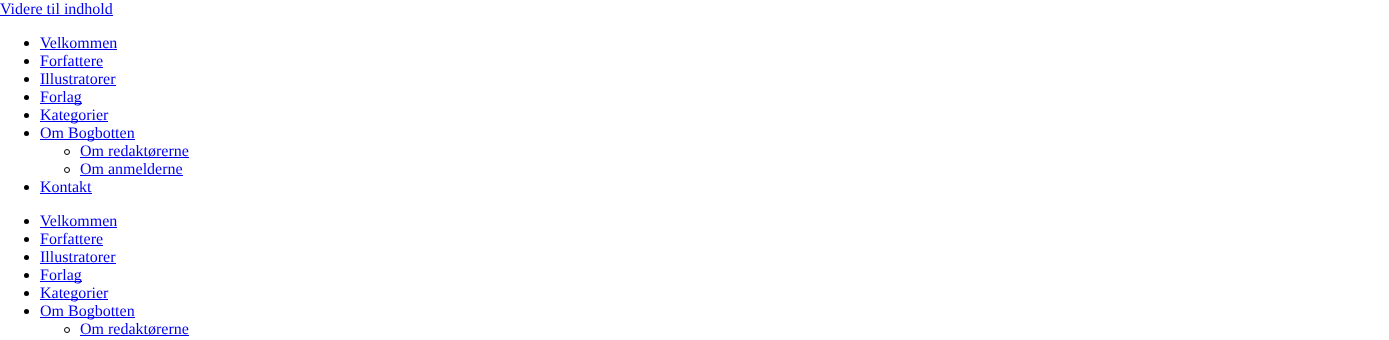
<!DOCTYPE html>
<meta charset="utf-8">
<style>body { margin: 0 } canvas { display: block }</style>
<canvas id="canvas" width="1389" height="340"></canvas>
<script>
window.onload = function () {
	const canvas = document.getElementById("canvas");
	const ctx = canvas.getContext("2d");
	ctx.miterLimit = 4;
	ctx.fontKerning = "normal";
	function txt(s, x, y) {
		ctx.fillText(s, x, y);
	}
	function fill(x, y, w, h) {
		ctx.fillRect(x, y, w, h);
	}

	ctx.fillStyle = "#FFFFFF";
	fill(0, 0, 1389, 340);
	ctx.fillStyle = "#0000EE";
	fill(0, 15, 113, 1);
	ctx.fillStyle = "#000000";
	ctx.beginPath();
	ctx.arc(26.5, 43.5, 2.5, 0, Math.PI * 2);
	ctx.fill();
	ctx.fillStyle = "#0000EE";
	fill(40, 49, 77, 1);
	ctx.fillStyle = "#000000";
	ctx.beginPath();
	ctx.arc(26.5, 61.5, 2.5, 0, Math.PI * 2);
	ctx.fill();
	ctx.fillStyle = "#0000EE";
	fill(40, 67, 63, 1);
	ctx.fillStyle = "#000000";
	ctx.beginPath();
	ctx.arc(26.5, 79.5, 2.5, 0, Math.PI * 2);
	ctx.fill();
	ctx.fillStyle = "#0000EE";
	fill(40, 85, 76, 1);
	ctx.fillStyle = "#000000";
	ctx.beginPath();
	ctx.arc(26.5, 97.5, 2.5, 0, Math.PI * 2);
	ctx.fill();
	ctx.fillStyle = "#0000EE";
	fill(40, 103, 42, 1);
	ctx.fillStyle = "#000000";
	ctx.beginPath();
	ctx.arc(26.5, 115.5, 2.5, 0, Math.PI * 2);
	ctx.fill();
	ctx.fillStyle = "#0000EE";
	fill(40, 121, 68, 1);
	ctx.fillStyle = "#000000";
	ctx.beginPath();
	ctx.arc(26.5, 133.5, 2.5, 0, Math.PI * 2);
	ctx.fill();
	ctx.fillStyle = "#0000EE";
	fill(40, 139, 95, 1);
	ctx.beginPath();
	ctx.arc(67, 152, 2.5, 0, Math.PI * 2);
	ctx.strokeStyle = "#000000";
	ctx.stroke();
	fill(80, 157, 109, 1);
	ctx.beginPath();
	ctx.arc(67, 170, 2.5, 0, Math.PI * 2);
	ctx.stroke();
	fill(80, 175, 103, 1);
	ctx.fillStyle = "#000000";
	ctx.beginPath();
	ctx.arc(26.5, 187.5, 2.5, 0, Math.PI * 2);
	ctx.fill();
	ctx.fillStyle = "#0000EE";
	fill(40, 193, 52, 1);
	ctx.fillStyle = "#000000";
	ctx.beginPath();
	ctx.arc(26.5, 221.5, 2.5, 0, Math.PI * 2);
	ctx.fill();
	ctx.fillStyle = "#0000EE";
	fill(40, 227, 77, 1);
	ctx.fillStyle = "#000000";
	ctx.beginPath();
	ctx.arc(26.5, 239.5, 2.5, 0, Math.PI * 2);
	ctx.fill();
	ctx.fillStyle = "#0000EE";
	fill(40, 245, 63, 1);
	ctx.fillStyle = "#000000";
	ctx.beginPath();
	ctx.arc(26.5, 257.5, 2.5, 0, Math.PI * 2);
	ctx.fill();
	ctx.fillStyle = "#0000EE";
	fill(40, 263, 76, 1);
	ctx.fillStyle = "#000000";
	ctx.beginPath();
	ctx.arc(26.5, 275.5, 2.5, 0, Math.PI * 2);
	ctx.fill();
	ctx.fillStyle = "#0000EE";
	fill(40, 281, 42, 1);
	ctx.fillStyle = "#000000";
	ctx.beginPath();
	ctx.arc(26.5, 293.5, 2.5, 0, Math.PI * 2);
	ctx.fill();
	ctx.fillStyle = "#0000EE";
	fill(40, 299, 68, 1);
	ctx.fillStyle = "#000000";
	ctx.beginPath();
	ctx.arc(26.5, 311.5, 2.5, 0, Math.PI * 2);
	ctx.fill();
	ctx.fillStyle = "#0000EE";
	fill(40, 317, 95, 1);
	ctx.beginPath();
	ctx.arc(67, 330, 2.5, 0, Math.PI * 2);
	ctx.stroke();
	fill(80, 335, 109, 1);
	ctx.font = "16px Liberation Serif";
	txt("Videre til indhold", 0, 14);
	txt("Velkommen", 40, 48);
	txt("Forfattere", 40, 66);
	txt("Illustratorer", 40, 84);
	txt("Forlag", 40, 102);
	txt("Kategorier", 40, 120);
	txt("Om Bogbotten", 40, 138);
	txt("Om redaktørerne", 80, 156);
	txt("Om anmelderne", 80, 174);
	txt("Kontakt", 40, 192);
	txt("Velkommen", 40, 226);
	txt("Forfattere", 40, 244);
	txt("Illustratorer", 40, 262);
	txt("Forlag", 40, 280);
	txt("Kategorier", 40, 298);
	txt("Om Bogbotten", 40, 316);
	txt("Om redaktørerne", 80, 334);
};
</script>
